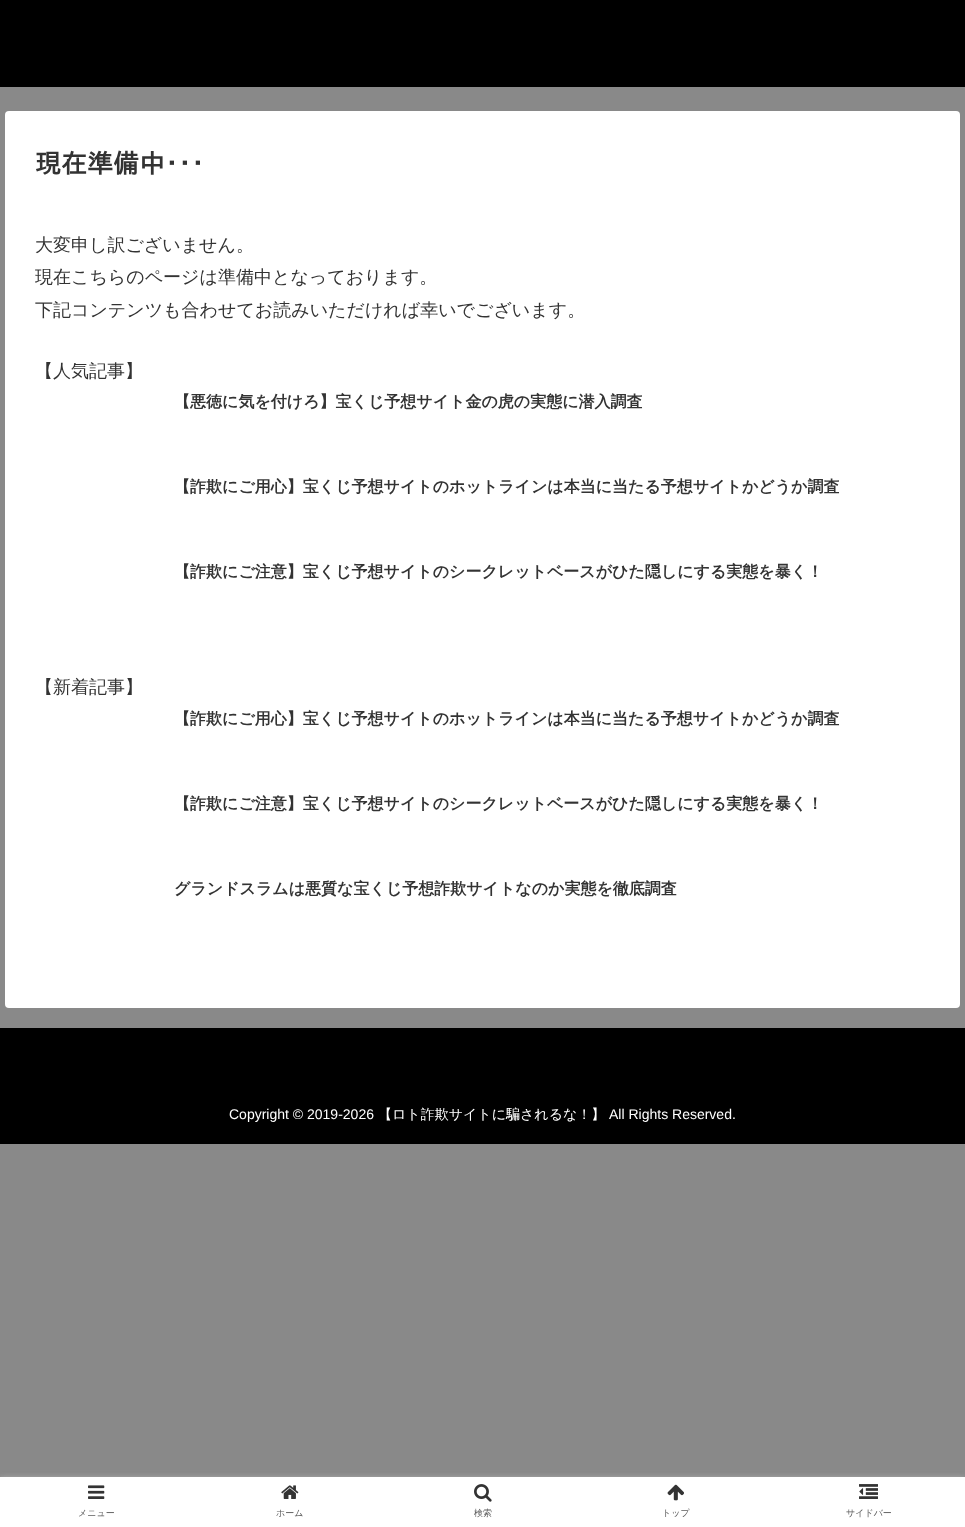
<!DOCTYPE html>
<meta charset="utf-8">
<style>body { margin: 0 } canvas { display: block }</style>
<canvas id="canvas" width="965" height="1527"></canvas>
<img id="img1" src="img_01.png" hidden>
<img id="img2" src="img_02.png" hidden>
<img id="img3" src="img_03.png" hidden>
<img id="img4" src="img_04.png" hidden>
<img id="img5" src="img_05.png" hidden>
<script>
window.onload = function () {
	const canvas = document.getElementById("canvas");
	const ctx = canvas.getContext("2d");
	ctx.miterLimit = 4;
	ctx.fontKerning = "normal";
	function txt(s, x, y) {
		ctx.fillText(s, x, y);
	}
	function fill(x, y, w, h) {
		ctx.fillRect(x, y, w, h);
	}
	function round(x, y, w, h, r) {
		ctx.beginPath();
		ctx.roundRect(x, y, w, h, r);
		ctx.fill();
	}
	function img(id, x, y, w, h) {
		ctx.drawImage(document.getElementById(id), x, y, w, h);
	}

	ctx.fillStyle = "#898989";
	fill(0, 0, 965, 1527);
	ctx.fillStyle = "#000000";
	fill(0, 0, 965, 87);
	ctx.fillStyle = "#FFFFFF";
	round(5, 111, 955, 897, 4);
	ctx.fillStyle = "#000000";
	fill(0, 1028, 965, 116);
	ctx.fillStyle = "#A9A9A9";
	ctx.filter = "blur(2.5px)";
	ctx.beginPath();
	ctx.rect(0, 1477, 965, 50);
	ctx.fill();
	ctx.filter = "none";
	ctx.fillStyle = "#FFFFFF";
	fill(0, 1477, 965, 50);
	img("img1", 88, 1485, 17, 14);
	img("img2", 281, 1485, 18, 14);
	img("img3", 474, 1484, 18, 18);
	img("img4", 667, 1484, 17, 17);
	img("img5", 859, 1484, 19, 15);
	ctx.font = "bold 26px IPAPGothic";
	ctx.fillStyle = "#333333";
	txt("現在準備中･･･", 35, 173);
	ctx.font = "500 18px WenQuanYi Zen Hei";
	txt("大変申し訳ございません。", 35, 251);
	txt("現在こちらのページは準備中となっております。", 35, 283);
	txt("下記コンテンツも合わせてお読みいただければ幸いでございます。", 35, 316);
	txt("【人気記事】", 35, 377);
	ctx.font = "bold 16px WenQuanYi Zen Hei";
	txt("【悪徳に気を付けろ】宝くじ予想サイト金の虎の実態に潜入調査", 174, 407);
	txt("【詐欺にご用心】宝くじ予想サイトのホットラインは本当に当たる予想サイトかどうか調査", 174, 492);
	txt("【詐欺にご注意】宝くじ予想サイトのシークレットベースがひた隠しにする実態を暴く！", 174, 577);
	ctx.font = "500 18px WenQuanYi Zen Hei";
	txt("【新着記事】", 35, 693);
	ctx.font = "bold 16px WenQuanYi Zen Hei";
	txt("【詐欺にご用心】宝くじ予想サイトのホットラインは本当に当たる予想サイトかどうか調査", 174, 724);
	txt("【詐欺にご注意】宝くじ予想サイトのシークレットベースがひた隠しにする実態を暴く！", 174, 809);
	txt("グランドスラムは悪質な宝くじ予想詐欺サイトなのか実態を徹底調査", 174, 894);
	ctx.font = "14px Liberation Sans";
	ctx.fillStyle = "#FFFFFF";
	txt("Copyright © 2019-2026", 229, 1119);
	ctx.font = "500 14px WenQuanYi Zen Hei";
	txt("【ロト詐欺サイトに騙されるな！】", 378, 1119);
	ctx.font = "14px Liberation Sans";
	txt("All Rights Reserved.", 609, 1119);
	ctx.font = "500 9px WenQuanYi Zen Hei";
	ctx.fillStyle = "#5C5C5C";
	txt("メニュー", 78, 1516);
	txt("ホーム", 276, 1516);
	txt("検索", 474, 1516);
	txt("トップ", 662, 1516);
	txt("サイドバー", 846, 1516);
};
</script>
